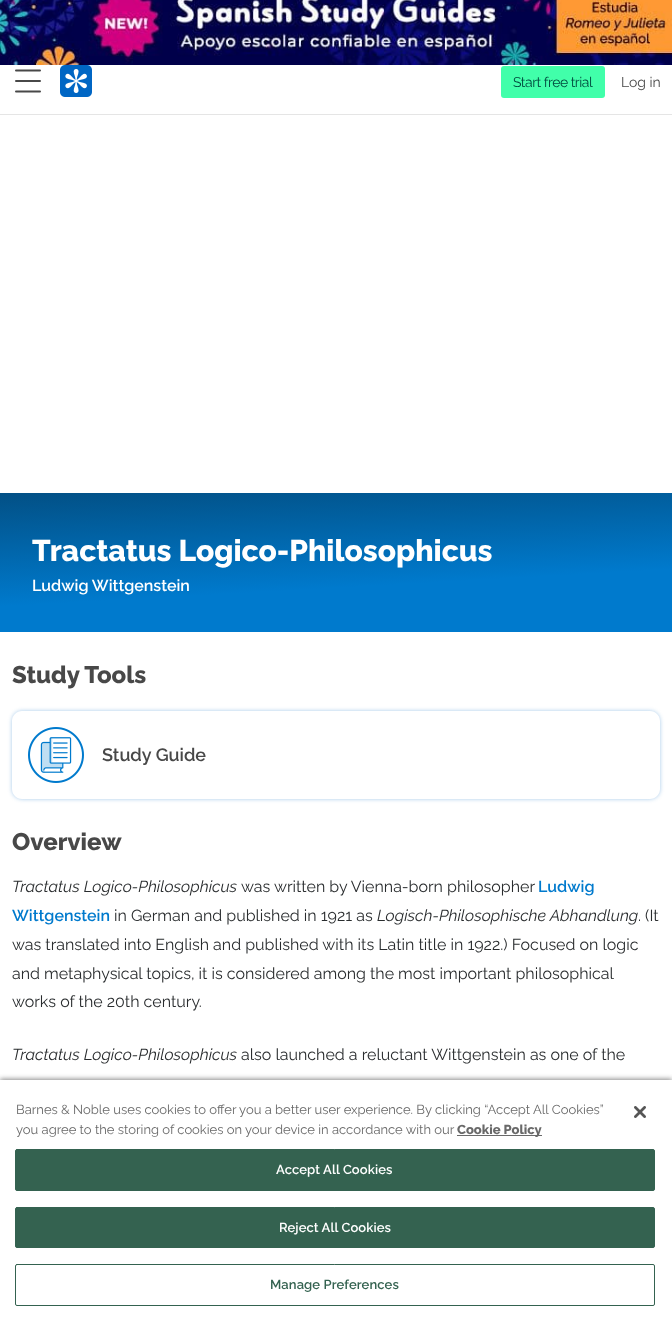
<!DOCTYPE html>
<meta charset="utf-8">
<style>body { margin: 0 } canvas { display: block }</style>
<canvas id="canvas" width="672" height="1322"></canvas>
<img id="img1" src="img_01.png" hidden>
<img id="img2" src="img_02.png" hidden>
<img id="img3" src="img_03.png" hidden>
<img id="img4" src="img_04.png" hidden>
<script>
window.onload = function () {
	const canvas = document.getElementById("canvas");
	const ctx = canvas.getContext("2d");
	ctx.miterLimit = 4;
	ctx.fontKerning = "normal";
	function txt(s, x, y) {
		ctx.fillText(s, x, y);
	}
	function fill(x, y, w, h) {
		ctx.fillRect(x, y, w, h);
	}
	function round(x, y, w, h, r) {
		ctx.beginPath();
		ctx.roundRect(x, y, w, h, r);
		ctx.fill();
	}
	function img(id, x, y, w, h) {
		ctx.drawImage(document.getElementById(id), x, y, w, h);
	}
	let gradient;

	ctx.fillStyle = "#FFFFFF";
	fill(0, 0, 672, 1322);
	img("img1", 0, 0, 672, 65);
	ctx.fillStyle = "#E5E5E5";
	fill(0, 114, 672, 1);
	ctx.beginPath();
	ctx.moveTo(16, 70.5);
	ctx.lineTo(40, 70.5);
	ctx.moveTo(16, 81);
	ctx.lineTo(40, 81);
	ctx.moveTo(16, 91.5);
	ctx.lineTo(40, 91.5);
	ctx.strokeStyle = "#484848";
	ctx.lineWidth = 2;
	ctx.lineCap = "round";
	ctx.stroke();
	img("img2", 60, 65, 32, 32);
	ctx.fillStyle = "#41FFAA";
	round(501, 66, 104, 32, 3);
	gradient = ctx.createLinearGradient(331, 469, 341, 649);
	gradient.addColorStop(0, "#024E82");
	gradient.addColorStop(0.66, "#007ACD");
	ctx.fillStyle = gradient;
	fill(0, 493, 672, 139);
	ctx.save();
	ctx.beginPath();
	ctx.moveTo(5, 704);
	ctx.lineTo(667, 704);
	ctx.lineTo(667, 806);
	ctx.lineTo(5, 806);
	ctx.closePath();
	ctx.moveTo(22, 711);
	ctx.lineTo(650, 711);
	ctx.bezierCurveTo(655.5, 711, 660, 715.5, 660, 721);
	ctx.lineTo(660, 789);
	ctx.bezierCurveTo(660, 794.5, 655.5, 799, 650, 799);
	ctx.lineTo(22, 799);
	ctx.bezierCurveTo(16.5, 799, 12, 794.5, 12, 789);
	ctx.lineTo(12, 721);
	ctx.bezierCurveTo(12, 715.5, 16.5, 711, 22, 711);
	ctx.closePath();
	ctx.clip("evenodd");
	ctx.fillStyle = "rgba(0, 102, 196, 0.35)";
	ctx.filter = "blur(2px)";
	ctx.beginPath();
	ctx.roundRect(12, 711, 648, 88, 10);
	ctx.fill();
	ctx.filter = "none";
	ctx.restore();
	img("img3", 28, 727, 56, 56);
	ctx.fillStyle = "#888888";
	ctx.filter = "blur(2.5px)";
	ctx.beginPath();
	ctx.rect(0, 1079, 672, 242);
	ctx.fill();
	ctx.filter = "none";
	ctx.fillStyle = "#FFFFFF";
	fill(0, 1080, 672, 242);
	ctx.fillStyle = "#696969";
	fill(457, 1135, 85, 1);
	ctx.fillStyle = "#346250";
	ctx.beginPath();
	ctx.roundRect(15.5, 1149.5, 639, 41, 1.5);
	ctx.fill();
	ctx.strokeStyle = "#346250";
	ctx.lineWidth = 1;
	ctx.stroke();
	ctx.beginPath();
	ctx.roundRect(15.5, 1207.5, 639, 40, 1.5);
	ctx.fill();
	ctx.stroke();
	ctx.beginPath();
	ctx.roundRect(15.5, 1264.5, 639, 41, 1.5);
	ctx.stroke();
	img("img4", 634, 1106, 12, 12);
	ctx.letterSpacing = "-0.5px";
	ctx.font = "14px Raleway";
	ctx.fillStyle = "#004A3E";
	txt("Start free trial", 513, 87);
	ctx.letterSpacing = "0px";
	ctx.fillStyle = "#484848";
	txt("Log in", 621, 87);
	ctx.font = "800 30px Raleway";
	ctx.fillStyle = "#FFFFFF";
	txt("Tractatus Logico-Philosophicus", 32, 561);
	ctx.font = "600 16px Raleway";
	txt("Ludwig Wittgenstein", 32, 591);
	ctx.font = "800 24px Raleway";
	ctx.fillStyle = "#484848";
	txt("Study Tools", 12, 683);
	ctx.font = "600 18px Raleway";
	txt("Study Guide", 102, 761);
	ctx.font = "800 24px Raleway";
	txt("Overview", 12, 850);
	ctx.font = "italic 16px Raleway";
	ctx.fillStyle = "#292C2E";
	txt("Tractatus Logico-Philosophicus", 12, 892);
	ctx.font = "16px Raleway";
	txt("was written by Vienna-born philosopher", 241, 892);
	ctx.font = "600 16px Raleway";
	ctx.fillStyle = "#007ACD";
	txt("Ludwig", 538, 892);
	txt("Wittgenstein", 12, 921);
	ctx.font = "16px Raleway";
	ctx.fillStyle = "#292C2E";
	txt("in German and published in 1921 as", 114, 921);
	ctx.font = "italic 16px Raleway";
	txt("Logisch-Philosophische Abhandlung", 377, 921);
	ctx.font = "16px Raleway";
	txt(". (It", 638, 921);
	txt("was translated into English and published with its Latin title in 1922.) Focused on logic", 12, 950);
	txt("and metaphysical topics, it is considered among the most important philosophical", 12, 979);
	txt("works of the 20th century.", 12, 1007);
	ctx.font = "italic 16px Raleway";
	txt("Tractatus Logico-Philosophicus", 12, 1060);
	ctx.font = "16px Raleway";
	txt("also launched a reluctant Wittgenstein as one of the", 241, 1060);
	ctx.font = "13px Raleway";
	ctx.fillStyle = "#696969";
	txt("Barnes & Noble uses cookies to offer you a better user experience. By clicking “Accept All Cookies”", 16, 1114);
	txt("you agree to the storing of cookies on your device in accordance with our", 16, 1134);
	ctx.font = "800 13px Raleway";
	txt("Cookie Policy", 457, 1134);
	ctx.letterSpacing = "0.1px";
	ctx.font = "600 13px Raleway";
	ctx.fillStyle = "#FFFFFF";
	txt("Accept All Cookies", 276, 1174);
	txt("Reject All Cookies", 279, 1232);
	ctx.fillStyle = "#346250";
	txt("Manage Preferences", 270, 1289);
};
</script>
